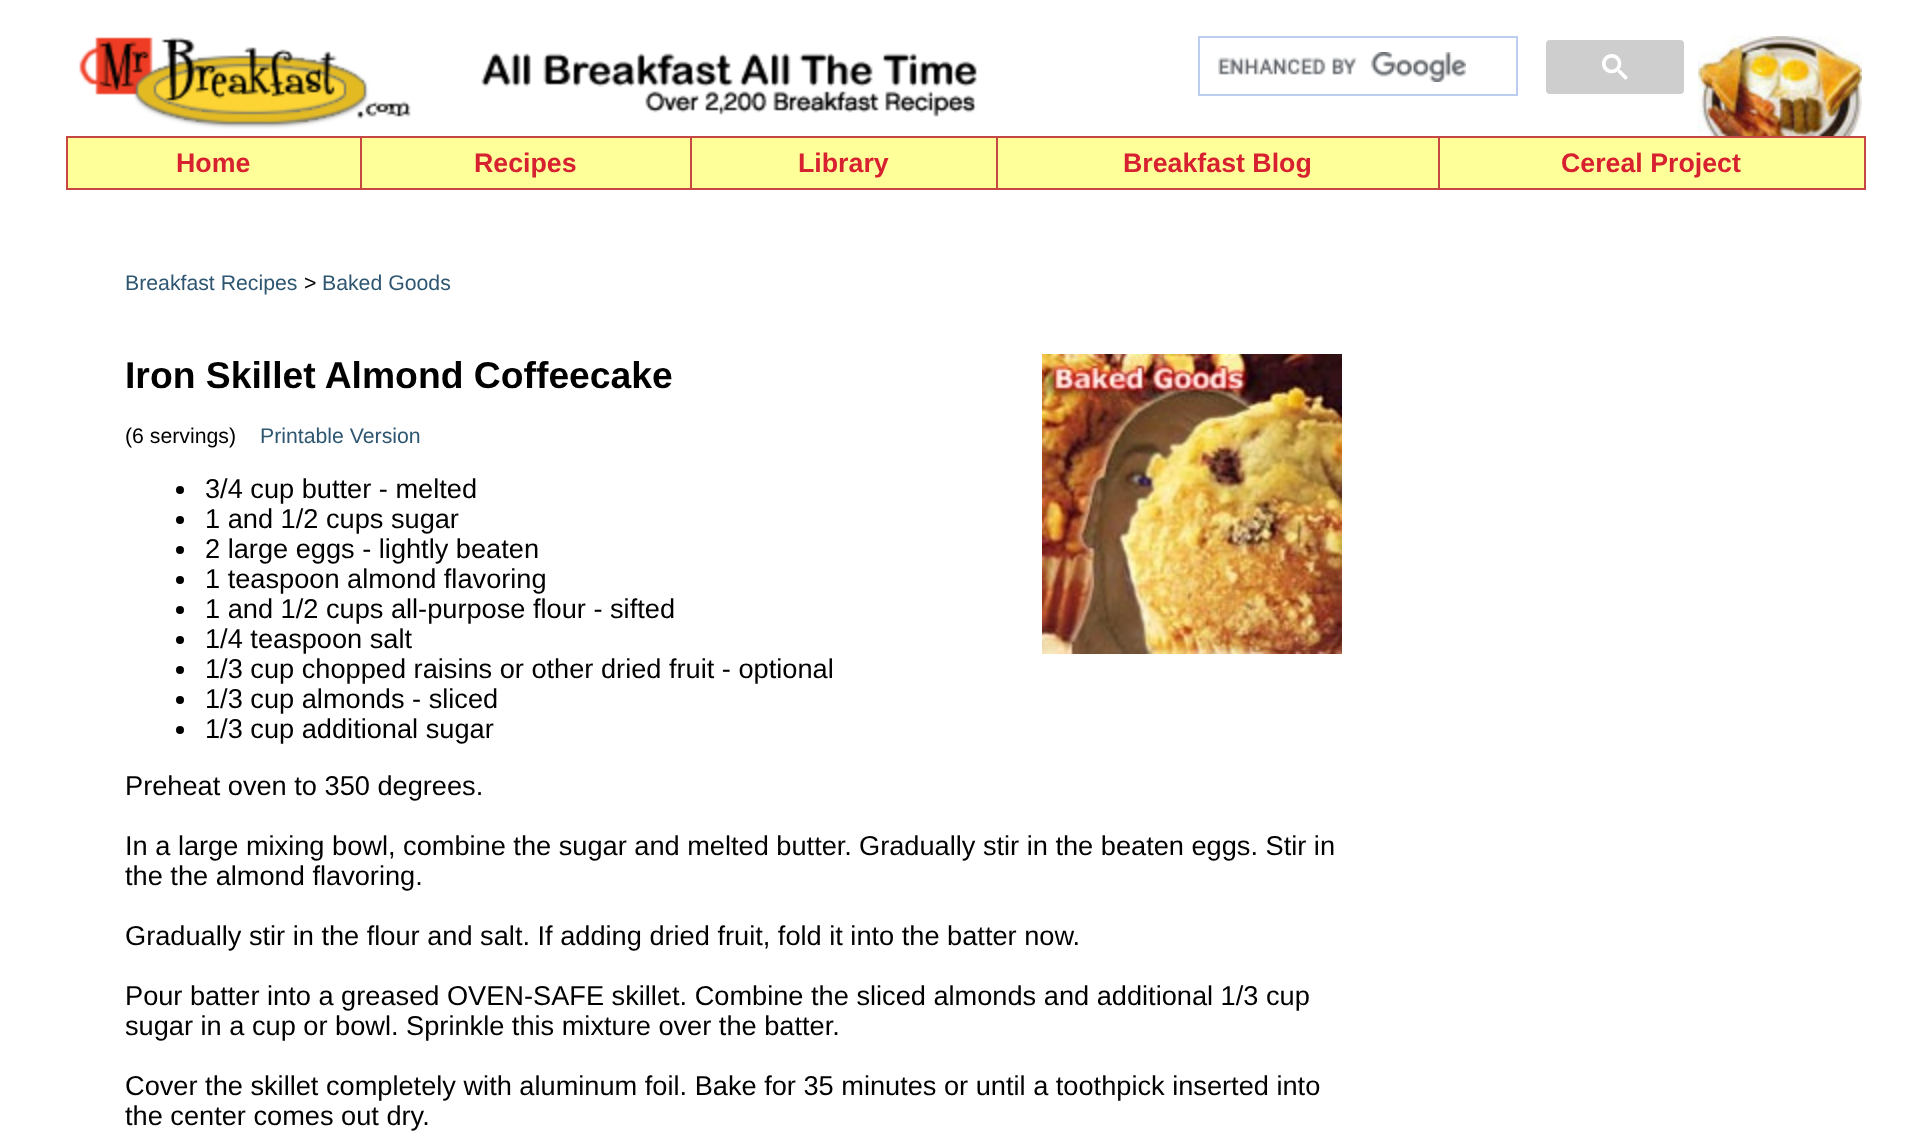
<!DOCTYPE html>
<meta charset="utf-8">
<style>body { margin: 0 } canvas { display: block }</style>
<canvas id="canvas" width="1929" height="1134"></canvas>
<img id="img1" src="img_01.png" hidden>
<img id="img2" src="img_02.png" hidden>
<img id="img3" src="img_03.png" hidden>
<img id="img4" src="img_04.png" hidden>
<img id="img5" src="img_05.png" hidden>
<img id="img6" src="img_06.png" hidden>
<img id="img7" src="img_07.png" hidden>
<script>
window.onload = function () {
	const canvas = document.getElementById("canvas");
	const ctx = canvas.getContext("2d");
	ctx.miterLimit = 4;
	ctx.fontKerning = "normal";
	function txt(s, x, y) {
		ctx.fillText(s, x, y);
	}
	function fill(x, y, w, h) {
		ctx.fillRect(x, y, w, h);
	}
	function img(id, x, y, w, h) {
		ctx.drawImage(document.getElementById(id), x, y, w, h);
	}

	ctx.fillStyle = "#FFFFFF";
	fill(0, 0, 1929, 1134);
	img("img1", 79, 37, 332, 92);
	img("img2", 481, 53, 496, 34);
	img("img3", 645, 91, 332, 26);
	ctx.strokeStyle = "#BCCDF0";
	ctx.lineWidth = 2;
	ctx.strokeRect(1199, 37, 318, 58);
	img("img4", 1218, 52, 248, 30);
	ctx.fillStyle = "#CECECE";
	ctx.beginPath();
	ctx.roundRect(1547, 41, 136, 52, 3);
	ctx.fill();
	ctx.strokeStyle = "#CECECE";
	ctx.stroke();
	img("img5", 1602, 54, 26, 26);
	img("img6", 1698, 36, 164, 100);
	ctx.fillStyle = "#C44743";
	fill(66, 136, 1800, 2);
	fill(66, 136, 2, 54);
	ctx.fillStyle = "#FFFF99";
	fill(68, 138, 292, 50);
	ctx.fillStyle = "#C44743";
	fill(360, 138, 2, 52);
	fill(68, 188, 294, 2);
	ctx.fillStyle = "#FFFF99";
	fill(362, 138, 328, 50);
	ctx.fillStyle = "#C44743";
	fill(690, 138, 2, 52);
	fill(362, 188, 330, 2);
	ctx.fillStyle = "#FFFF99";
	fill(692, 138, 304, 50);
	ctx.fillStyle = "#C44743";
	fill(996, 138, 2, 52);
	fill(692, 188, 306, 2);
	ctx.fillStyle = "#FFFF99";
	fill(998, 138, 440, 50);
	ctx.fillStyle = "#C44743";
	fill(1438, 138, 2, 52);
	fill(998, 188, 442, 2);
	ctx.fillStyle = "#FFFF99";
	fill(1440, 138, 424, 50);
	ctx.fillStyle = "#C44743";
	fill(1864, 138, 2, 52);
	fill(1440, 188, 426, 2);
	img("img7", 1042, 354, 300, 300);
	ctx.fillStyle = "#000000";
	ctx.beginPath();
	ctx.arc(180, 490, 4, 0, Math.PI * 2);
	ctx.fill();
	ctx.beginPath();
	ctx.arc(180, 520, 4, 0, Math.PI * 2);
	ctx.fill();
	ctx.beginPath();
	ctx.arc(180, 550, 4, 0, Math.PI * 2);
	ctx.fill();
	ctx.beginPath();
	ctx.arc(180, 580, 4, 0, Math.PI * 2);
	ctx.fill();
	ctx.beginPath();
	ctx.arc(180, 610, 4, 0, Math.PI * 2);
	ctx.fill();
	ctx.beginPath();
	ctx.arc(180, 640, 4, 0, Math.PI * 2);
	ctx.fill();
	ctx.beginPath();
	ctx.arc(180, 670, 4, 0, Math.PI * 2);
	ctx.fill();
	ctx.beginPath();
	ctx.arc(180, 700, 4, 0, Math.PI * 2);
	ctx.fill();
	ctx.beginPath();
	ctx.arc(180, 730, 4, 0, Math.PI * 2);
	ctx.fill();
	ctx.font = "bold 26.75px Liberation Sans";
	ctx.fillStyle = "#D72130";
	txt("Home", 176, 172);
	txt("Recipes", 474, 172);
	txt("Library", 798, 172);
	txt("Breakfast Blog", 1123, 172);
	txt("Cereal Project", 1561, 172);
	ctx.font = "21.25px Liberation Sans";
	ctx.fillStyle = "#2E5671";
	txt("Breakfast Recipes", 125, 290);
	ctx.fillStyle = "#000000";
	txt(">", 304, 290);
	ctx.fillStyle = "#2E5671";
	txt("Baked Goods", 322, 290);
	ctx.font = "bold 37.3px Liberation Sans";
	ctx.fillStyle = "#000000";
	txt("Iron Skillet Almond Coffeecake", 125, 388);
	ctx.font = "21.25px Liberation Sans";
	txt("(6 servings)", 125, 443);
	ctx.fillStyle = "#2E5671";
	txt("Printable Version", 260, 443);
	ctx.font = "27.2px Liberation Sans";
	ctx.fillStyle = "#000000";
	txt("3/4 cup butter - melted", 205, 498);
	txt("1 and 1/2 cups sugar", 205, 528);
	txt("2 large eggs - lightly beaten", 205, 558);
	txt("1 teaspoon almond flavoring", 205, 588);
	txt("1 and 1/2 cups all-purpose flour - sifted", 205, 618);
	txt("1/4 teaspoon salt", 205, 648);
	txt("1/3 cup chopped raisins or other dried fruit - optional", 205, 678);
	txt("1/3 cup almonds - sliced", 205, 708);
	txt("1/3 cup additional sugar", 205, 738);
	txt("Preheat oven to 350 degrees.", 125, 795);
	txt("In a large mixing bowl, combine the sugar and melted butter.", 125, 855);
	txt("Gradually stir in the beaten eggs. Stir in", 859, 855);
	txt("the the almond flavoring.", 125, 885);
	txt("Gradually stir in the flour and salt. If adding dried fruit, fold it into the batter now.", 125, 945);
	txt("Pour batter into a greased OVEN-SAFE skillet. Combine the sliced almonds and additional 1/3 cup", 125, 1005);
	txt("sugar in a cup or bowl. Sprinkle this mixture over the batter.", 125, 1035);
	txt("Cover the skillet completely with aluminum foil. Bake for 35 minutes or until a toothpick inserted into", 125, 1095);
	txt("the center comes out dry.", 125, 1125);
};
</script>
